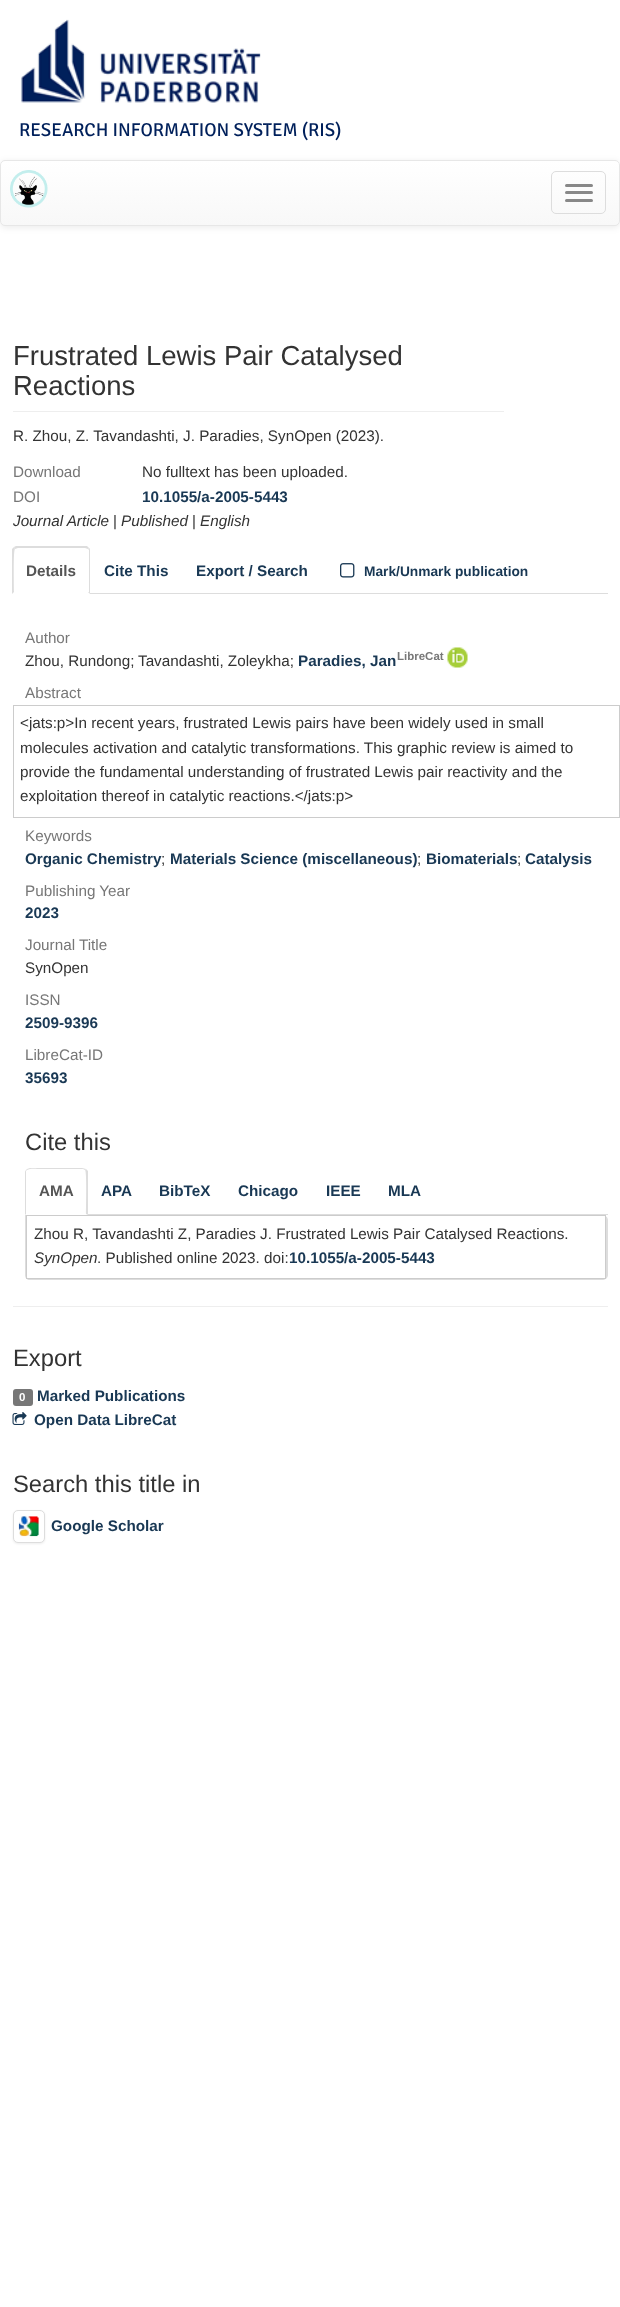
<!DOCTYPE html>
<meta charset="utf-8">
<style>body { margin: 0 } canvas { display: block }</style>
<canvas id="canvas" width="620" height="2307"></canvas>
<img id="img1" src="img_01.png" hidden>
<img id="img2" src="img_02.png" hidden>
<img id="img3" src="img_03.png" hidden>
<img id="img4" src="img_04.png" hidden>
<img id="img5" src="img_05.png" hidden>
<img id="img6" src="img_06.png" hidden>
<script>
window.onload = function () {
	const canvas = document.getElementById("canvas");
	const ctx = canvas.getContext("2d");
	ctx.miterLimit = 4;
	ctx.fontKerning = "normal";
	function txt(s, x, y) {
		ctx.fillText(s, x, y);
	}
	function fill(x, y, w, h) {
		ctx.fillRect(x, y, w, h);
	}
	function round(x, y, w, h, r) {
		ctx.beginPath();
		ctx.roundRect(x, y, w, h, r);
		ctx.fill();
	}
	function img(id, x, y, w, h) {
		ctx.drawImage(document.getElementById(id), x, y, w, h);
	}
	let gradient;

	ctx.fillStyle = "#FFFFFF";
	fill(0, 0, 620, 2307);
	img("img1", 21, 19, 240, 84);
	ctx.fillStyle = "rgba(0, 0, 0, 0.07)";
	ctx.filter = "blur(3px)";
	ctx.beginPath();
	ctx.roundRect(0, 161, 620, 67, 5);
	ctx.fill();
	ctx.filter = "none";
	ctx.save();
	ctx.beginPath();
	ctx.roundRect(0, 160, 620, 66, 5);
	ctx.clip();
	gradient = ctx.createLinearGradient(310, 161, 310, 225);
	gradient.addColorStop(0, "#FFFFFF");
	gradient.addColorStop(1, "#F8F8F8");
	ctx.fillStyle = gradient;
	fill(0, 161, 620, 64);
	ctx.restore();
	ctx.beginPath();
	ctx.roundRect(0.5, 160.5, 619, 65, 4.5);
	ctx.strokeStyle = "#E7E7E7";
	ctx.stroke();
	img("img2", 10, 170, 38, 38);
	ctx.beginPath();
	ctx.roundRect(551.5, 171.5, 54, 42, 4.5);
	ctx.strokeStyle = "#DDDDDD";
	ctx.stroke();
	ctx.fillStyle = "#888888";
	round(565, 184, 28, 3, 1.5);
	round(565, 191, 28, 3, 1.5);
	round(565, 199, 28, 3, 1.5);
	ctx.fillStyle = "#EEEEEE";
	fill(13, 411, 491, 1);
	ctx.fillStyle = "#DDDDDD";
	fill(90, 593, 518, 1);
	ctx.beginPath();
	ctx.moveTo(18, 548);
	ctx.lineTo(15, 549);
	ctx.lineTo(14, 547);
	ctx.lineTo(16, 546);
	ctx.lineTo(87, 546);
	ctx.lineTo(89, 548);
	ctx.lineTo(88, 549);
	ctx.lineTo(85, 548);
	ctx.closePath();
	ctx.fill();
	ctx.beginPath();
	ctx.moveTo(90, 594);
	ctx.lineTo(90, 551);
	ctx.bezierCurveTo(90, 550, 90, 548, 89, 548);
	ctx.lineTo(88, 549);
	ctx.lineTo(89, 550);
	ctx.lineTo(89, 592);
	ctx.lineTo(88, 592);
	ctx.closePath();
	ctx.fill();
	ctx.beginPath();
	ctx.moveTo(12, 594);
	ctx.lineTo(12, 549);
	ctx.lineTo(14, 547);
	ctx.lineTo(15, 549);
	ctx.bezierCurveTo(13, 550, 14, 587, 14, 592);
	ctx.closePath();
	ctx.fill();
	img("img3", 340, 563, 15, 15);
	img("img4", 447, 647, 21, 21);
	ctx.strokeStyle = "#CCCCCC";
	ctx.strokeRect(13.5, 705.5, 606, 112);
	fill(88, 1214, 520, 1);
	ctx.beginPath();
	ctx.moveTo(30, 1168);
	ctx.lineTo(27, 1169);
	ctx.lineTo(27, 1170);
	ctx.bezierCurveTo(30, 1168, 38, 1169, 39, 1169);
	ctx.lineTo(83, 1169);
	ctx.lineTo(85, 1170);
	ctx.lineTo(86, 1169);
	ctx.lineTo(82, 1168);
	ctx.closePath();
	ctx.fill();
	ctx.beginPath();
	ctx.moveTo(88, 1171);
	ctx.lineTo(88, 1215);
	ctx.lineTo(86, 1214);
	ctx.bezierCurveTo(86, 1208, 87, 1171, 85, 1170);
	ctx.lineTo(86, 1169);
	ctx.closePath();
	ctx.moveTo(25, 1215);
	ctx.lineTo(26, 1214);
	ctx.lineTo(26, 1171);
	ctx.lineTo(27, 1170);
	ctx.lineTo(27, 1169);
	ctx.bezierCurveTo(26, 1170, 25, 1171, 25, 1172);
	ctx.closePath();
	ctx.fill();
	ctx.beginPath();
	ctx.moveTo(25, 1215);
	ctx.lineTo(602, 1215);
	ctx.bezierCurveTo(605, 1215, 608, 1217, 608, 1220);
	ctx.lineTo(608, 1275);
	ctx.bezierCurveTo(608, 1278, 605, 1280, 602, 1280);
	ctx.lineTo(30, 1280);
	ctx.bezierCurveTo(27, 1280, 25, 1278, 25, 1275);
	ctx.closePath();
	ctx.moveTo(26, 1215);
	ctx.lineTo(602, 1215);
	ctx.bezierCurveTo(605, 1215, 606, 1217, 606, 1220);
	ctx.lineTo(606, 1275);
	ctx.bezierCurveTo(606, 1277, 605, 1279, 602, 1279);
	ctx.lineTo(30, 1279);
	ctx.bezierCurveTo(28, 1279, 26, 1277, 26, 1275);
	ctx.closePath();
	ctx.fill("evenodd");
	ctx.strokeRect(26.5, 1215.5, 579, 63);
	ctx.fillStyle = "#EEEEEE";
	fill(13, 1306, 595, 1);
	ctx.fillStyle = "#777777";
	round(13, 1389, 20, 17, 3);
	img("img5", 12, 1412, 15, 13);
	ctx.fillStyle = "rgba(0, 0, 0, 0.07)";
	ctx.filter = "blur(1px)";
	ctx.beginPath();
	ctx.roundRect(13, 1511, 32, 33, 5);
	ctx.fill();
	ctx.filter = "none";
	ctx.fillStyle = "#FFFFFF";
	ctx.beginPath();
	ctx.roundRect(13.5, 1510.5, 31, 32, 4.5);
	ctx.fill();
	ctx.strokeStyle = "#DDDDDD";
	ctx.stroke();
	img("img6", 18, 1516, 21, 21);
	ctx.font = "18.75px Signika";
	ctx.fillStyle = "#00205B";
	txt("RESEARCH INFORMATION SYSTEM (RIS)", 19, 136);
	ctx.font = "27.5px Liberation Sans";
	ctx.fillStyle = "#333333";
	txt("Frustrated Lewis Pair Catalysed", 13, 365);
	txt("Reactions", 13, 395);
	ctx.font = "15.25px Liberation Sans";
	txt("R. Zhou, Z. Tavandashti, J. Paradies, SynOpen (2023).", 13, 441);
	ctx.fillStyle = "#777777";
	txt("Download", 13, 477);
	ctx.fillStyle = "#333333";
	txt("No fulltext has been uploaded.", 142, 477);
	ctx.fillStyle = "#777777";
	txt("DOI", 13, 502);
	ctx.font = "bold 15.25px Liberation Sans";
	ctx.fillStyle = "#193854";
	txt("10.1055/a-2005-5443", 142, 502);
	ctx.font = "italic 15.25px Liberation Sans";
	ctx.fillStyle = "#333333";
	txt("Journal Article", 13, 526);
	ctx.font = "15.25px Liberation Sans";
	txt("|", 113, 526);
	ctx.font = "italic 15.25px Liberation Sans";
	txt("Published", 121, 526);
	ctx.font = "15.25px Liberation Sans";
	txt("|", 192, 526);
	ctx.font = "italic 15.25px Liberation Sans";
	txt("English", 200, 526);
	ctx.font = "bold 15.25px Liberation Sans";
	ctx.fillStyle = "#555555";
	txt("Details", 26, 576);
	ctx.fillStyle = "#193854";
	txt("Cite This", 104, 576);
	txt("Export / Search", 196, 576);
	ctx.font = "bold 13.75px Liberation Sans";
	txt("Mark/Unmark publication", 364, 576);
	ctx.font = "15.25px Liberation Sans";
	ctx.fillStyle = "#777777";
	txt("Author", 25, 643);
	ctx.fillStyle = "#333333";
	txt("Zhou, Rundong;", 25, 666);
	txt("Tavandashti, Zoleykha;", 138, 666);
	ctx.font = "bold 15.25px Liberation Sans";
	ctx.fillStyle = "#193854";
	txt("Paradies, Jan", 298, 666);
	ctx.font = "bold 11.5px Liberation Sans";
	ctx.fillStyle = "#777777";
	txt("LibreCat", 397, 660);
	ctx.font = "15.25px Liberation Sans";
	txt("Abstract", 25, 698);
	ctx.fillStyle = "#333333";
	txt("<jats:p>In recent years, frustrated Lewis pairs have been widely used in small", 20, 728);
	txt("molecules activation and catalytic transformations. This graphic review is aimed to", 20, 753);
	txt("provide the fundamental understanding of frustrated Lewis pair reactivity and the", 20, 777);
	txt("exploitation thereof in catalytic reactions.<\/jats:p>", 20, 801);
	ctx.fillStyle = "#777777";
	txt("Keywords", 25, 841);
	ctx.font = "bold 15.25px Liberation Sans";
	ctx.fillStyle = "#193854";
	txt("Organic Chemistry", 25, 864);
	ctx.font = "15.25px Liberation Sans";
	ctx.fillStyle = "#333333";
	txt(";", 161, 864);
	ctx.font = "bold 15.25px Liberation Sans";
	ctx.fillStyle = "#193854";
	txt("Materials Science (miscellaneous)", 170, 864);
	ctx.font = "15.25px Liberation Sans";
	ctx.fillStyle = "#333333";
	txt(";", 417, 864);
	ctx.font = "bold 15.25px Liberation Sans";
	ctx.fillStyle = "#193854";
	txt("Biomaterials", 426, 864);
	ctx.font = "15.25px Liberation Sans";
	ctx.fillStyle = "#333333";
	txt(";", 517, 864);
	ctx.font = "bold 15.25px Liberation Sans";
	ctx.fillStyle = "#193854";
	txt("Catalysis", 525, 864);
	ctx.font = "15.25px Liberation Sans";
	ctx.fillStyle = "#777777";
	txt("Publishing Year", 25, 896);
	ctx.font = "bold 15.25px Liberation Sans";
	ctx.fillStyle = "#193854";
	txt("2023", 25, 918);
	ctx.font = "15.25px Liberation Sans";
	ctx.fillStyle = "#777777";
	txt("Journal Title", 25, 950);
	ctx.fillStyle = "#333333";
	txt("SynOpen", 25, 973);
	ctx.fillStyle = "#777777";
	txt("ISSN", 25, 1005);
	ctx.font = "bold 15.25px Liberation Sans";
	ctx.fillStyle = "#193854";
	txt("2509-9396", 25, 1028);
	ctx.font = "15.25px Liberation Sans";
	ctx.fillStyle = "#777777";
	txt("LibreCat-ID", 25, 1060);
	ctx.font = "bold 15.25px Liberation Sans";
	ctx.fillStyle = "#193854";
	txt("35693", 25, 1083);
	ctx.font = "23.75px Liberation Sans";
	ctx.fillStyle = "#333333";
	txt("Cite this", 25, 1150);
	ctx.font = "bold 15.25px Liberation Sans";
	ctx.fillStyle = "#555555";
	txt("AMA", 39, 1196);
	ctx.fillStyle = "#193854";
	txt("APA", 101, 1196);
	txt("BibTeX", 159, 1196);
	txt("Chicago", 238, 1196);
	txt("IEEE", 326, 1196);
	txt("MLA", 388, 1196);
	ctx.font = "15.25px Liberation Sans";
	ctx.fillStyle = "#333333";
	txt("Zhou R, Tavandashti Z, Paradies J. Frustrated Lewis Pair Catalysed Reactions.", 34, 1239);
	ctx.font = "italic 15.25px Liberation Sans";
	txt("SynOpen", 34, 1263);
	ctx.font = "15.25px Liberation Sans";
	txt(". Published online 2023. doi:", 97, 1263);
	ctx.font = "bold 15.25px Liberation Sans";
	ctx.fillStyle = "#193854";
	txt("10.1055/a-2005-5443", 289, 1263);
	ctx.font = "23.75px Liberation Sans";
	ctx.fillStyle = "#333333";
	txt("Export", 13, 1366);
	ctx.font = "bold 11.5px Liberation Sans";
	ctx.fillStyle = "#FFFFFF";
	txt("0", 19, 1401);
	ctx.font = "bold 15.25px Liberation Sans";
	ctx.fillStyle = "#193854";
	txt("Marked Publications", 37, 1401);
	txt("Open Data LibreCat", 34, 1425);
	ctx.font = "23.75px Liberation Sans";
	ctx.fillStyle = "#333333";
	txt("Search this title in", 13, 1492);
	ctx.font = "bold 15.25px Liberation Sans";
	ctx.fillStyle = "#193854";
	txt("Google Scholar", 51, 1531);
};
</script>
